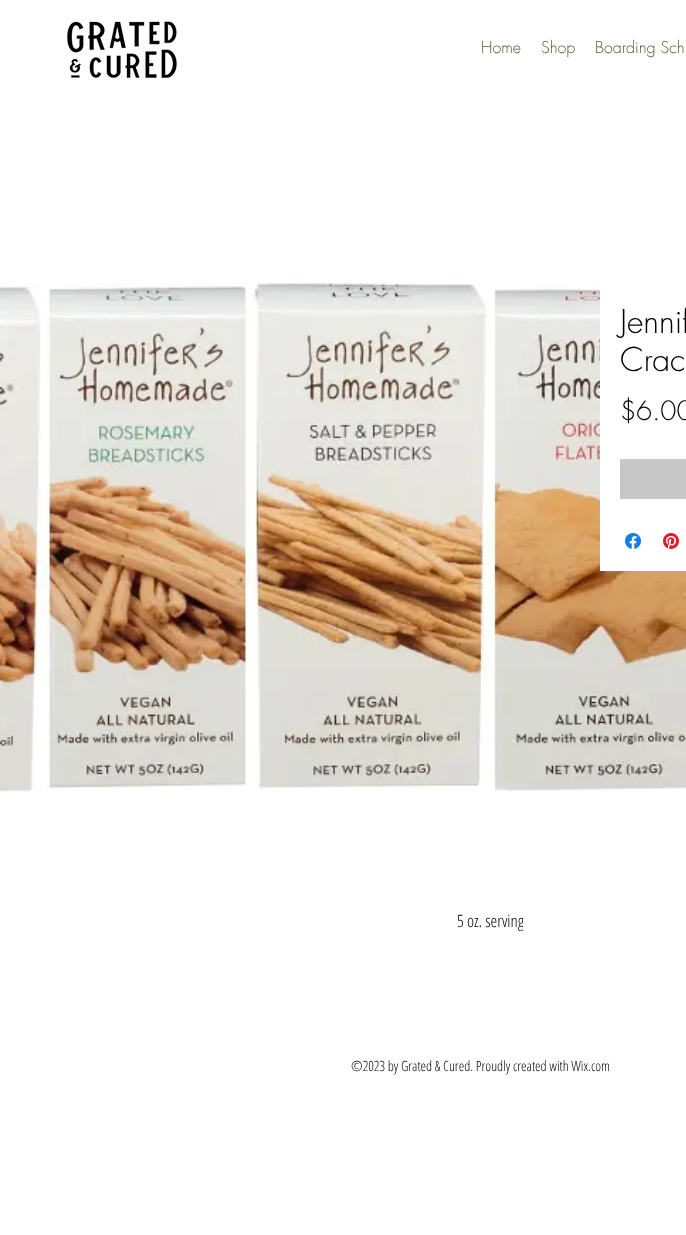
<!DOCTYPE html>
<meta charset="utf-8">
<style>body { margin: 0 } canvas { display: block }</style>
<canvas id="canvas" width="686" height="1235"></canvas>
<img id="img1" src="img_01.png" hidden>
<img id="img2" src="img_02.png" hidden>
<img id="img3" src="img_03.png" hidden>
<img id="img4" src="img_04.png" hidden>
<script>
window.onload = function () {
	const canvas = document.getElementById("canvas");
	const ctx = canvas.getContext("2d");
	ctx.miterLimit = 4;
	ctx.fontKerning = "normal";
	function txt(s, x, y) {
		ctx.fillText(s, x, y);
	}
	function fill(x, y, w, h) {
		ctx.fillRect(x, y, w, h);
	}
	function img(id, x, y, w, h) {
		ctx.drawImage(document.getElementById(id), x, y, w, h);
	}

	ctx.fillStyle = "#FFFFFF";
	fill(0, 0, 686, 1235);
	img("img1", 67, 21, 110, 57);
	img("img2", 0, 283, 686, 511);
	fill(600, 283, 86, 288);
	ctx.fillStyle = "#C7C7C7";
	fill(620, 459, 66, 40);
	img("img3", 625, 533, 16, 16);
	img("img4", 663, 533, 16, 16);
	ctx.font = "300 16px futura";
	ctx.fillStyle = "#4E5D2C";
	txt("Home", 481, 53);
	txt("Shop", 541, 53);
	txt("Boarding Sch", 595, 53);
	ctx.font = "300 32px futura";
	ctx.fillStyle = "#000000";
	txt("Jennif", 620, 333);
	txt("Crac", 620, 371);
	ctx.font = "300 26px futura";
	txt("$6.00", 620, 420);
	ctx.save();
	ctx.beginPath();
	ctx.rect(457, 908, 66, 26);
	ctx.clip();
	ctx.font = "300 17px Open Sans Condensed";
	txt("5 oz. serving", 457, 927);
	ctx.restore();
	ctx.font = "300 14px Open Sans Condensed";
	txt("©2023 by Grated & Cured. Proudly created with Wix.com", 351, 1071);
};
</script>
